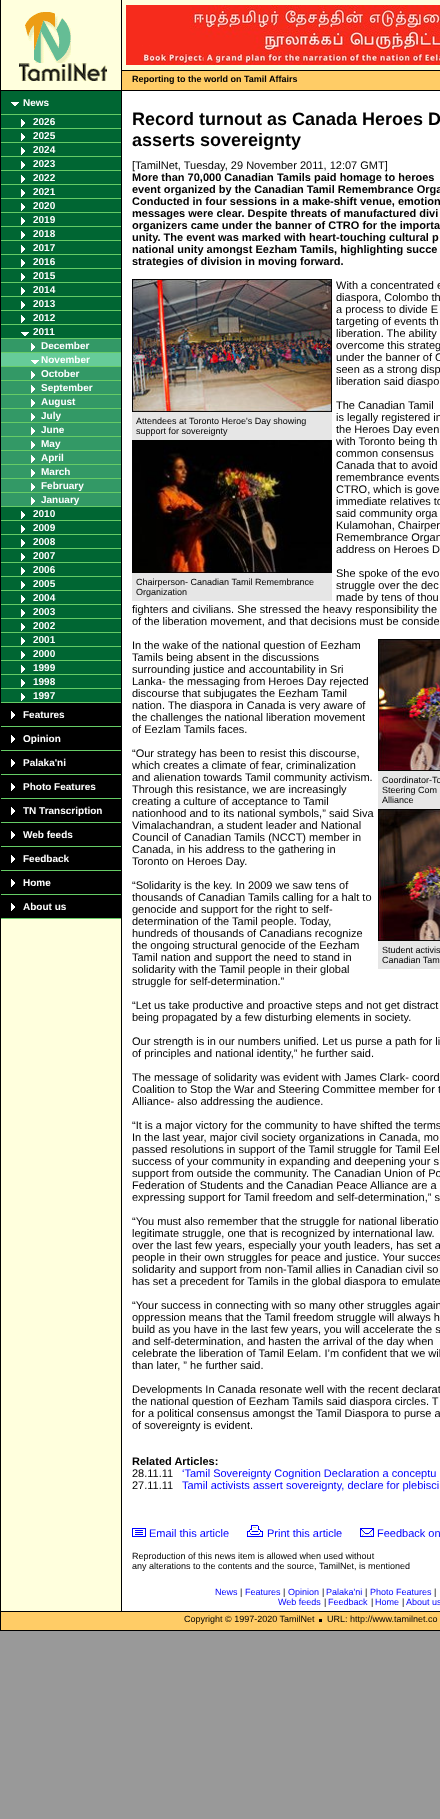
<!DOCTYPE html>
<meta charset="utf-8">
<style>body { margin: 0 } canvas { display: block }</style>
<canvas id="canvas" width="440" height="1819"></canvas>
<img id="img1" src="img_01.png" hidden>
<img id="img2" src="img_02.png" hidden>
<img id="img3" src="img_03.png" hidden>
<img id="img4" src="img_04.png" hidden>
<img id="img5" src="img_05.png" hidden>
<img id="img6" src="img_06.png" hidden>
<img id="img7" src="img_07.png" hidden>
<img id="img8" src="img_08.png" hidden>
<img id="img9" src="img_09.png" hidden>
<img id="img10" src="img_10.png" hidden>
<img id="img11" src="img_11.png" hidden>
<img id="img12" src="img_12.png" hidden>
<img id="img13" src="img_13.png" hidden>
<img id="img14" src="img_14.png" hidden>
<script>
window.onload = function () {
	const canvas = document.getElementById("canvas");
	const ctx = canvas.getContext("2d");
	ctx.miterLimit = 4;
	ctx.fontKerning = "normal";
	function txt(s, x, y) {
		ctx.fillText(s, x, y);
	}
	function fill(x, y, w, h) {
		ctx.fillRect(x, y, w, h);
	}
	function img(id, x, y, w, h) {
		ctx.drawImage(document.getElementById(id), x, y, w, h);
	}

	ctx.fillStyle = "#999999";
	fill(0, 0, 440, 1819);
	ctx.fillStyle = "#FFFFDD";
	fill(1, 0, 439, 1611);
	ctx.fillStyle = "#000000";
	fill(0, 1630, 440, 1);
	fill(0, 0, 1, 1631);
	fill(1, 90, 439, 1);
	fill(121, 0, 1, 90);
	img("img1", 19, 12, 88, 69);
	fill(122, 70, 318, 1);
	img("img2", 126, 5, 314, 60);
	ctx.fillStyle = "#FFCC66";
	fill(122, 71, 318, 19);
	ctx.fillStyle = "#006633";
	fill(1, 91, 120, 23);
	img("img3", 11, 102, 8, 4);
	ctx.fillStyle = "#66CC66";
	fill(1, 114, 120, 1);
	ctx.fillStyle = "#006633";
	fill(1, 115, 120, 13);
	img("img4", 21, 119, 4, 8);
	ctx.fillStyle = "#66CC66";
	fill(1, 128, 120, 1);
	ctx.fillStyle = "#006633";
	fill(1, 129, 120, 13);
	img("img4", 21, 133, 4, 8);
	ctx.fillStyle = "#66CC66";
	fill(1, 142, 120, 1);
	ctx.fillStyle = "#006633";
	fill(1, 143, 120, 13);
	img("img4", 21, 147, 4, 8);
	ctx.fillStyle = "#66CC66";
	fill(1, 156, 120, 1);
	ctx.fillStyle = "#006633";
	fill(1, 157, 120, 13);
	img("img4", 21, 161, 4, 8);
	ctx.fillStyle = "#66CC66";
	fill(1, 170, 120, 1);
	ctx.fillStyle = "#006633";
	fill(1, 171, 120, 13);
	img("img4", 21, 175, 4, 8);
	ctx.fillStyle = "#66CC66";
	fill(1, 184, 120, 1);
	ctx.fillStyle = "#006633";
	fill(1, 185, 120, 13);
	img("img4", 21, 189, 4, 8);
	ctx.fillStyle = "#66CC66";
	fill(1, 198, 120, 1);
	ctx.fillStyle = "#006633";
	fill(1, 199, 120, 13);
	img("img4", 21, 203, 4, 8);
	ctx.fillStyle = "#66CC66";
	fill(1, 212, 120, 1);
	ctx.fillStyle = "#006633";
	fill(1, 213, 120, 13);
	img("img4", 21, 217, 4, 8);
	ctx.fillStyle = "#66CC66";
	fill(1, 226, 120, 1);
	ctx.fillStyle = "#006633";
	fill(1, 227, 120, 13);
	img("img4", 21, 231, 4, 8);
	ctx.fillStyle = "#66CC66";
	fill(1, 240, 120, 1);
	ctx.fillStyle = "#006633";
	fill(1, 241, 120, 13);
	img("img4", 21, 245, 4, 8);
	ctx.fillStyle = "#66CC66";
	fill(1, 254, 120, 1);
	ctx.fillStyle = "#006633";
	fill(1, 255, 120, 13);
	img("img4", 21, 259, 4, 8);
	ctx.fillStyle = "#66CC66";
	fill(1, 268, 120, 1);
	ctx.fillStyle = "#006633";
	fill(1, 269, 120, 13);
	img("img4", 21, 273, 4, 8);
	ctx.fillStyle = "#66CC66";
	fill(1, 282, 120, 1);
	ctx.fillStyle = "#006633";
	fill(1, 283, 120, 13);
	img("img4", 21, 287, 4, 8);
	ctx.fillStyle = "#66CC66";
	fill(1, 296, 120, 1);
	ctx.fillStyle = "#006633";
	fill(1, 297, 120, 13);
	img("img4", 21, 301, 4, 8);
	ctx.fillStyle = "#66CC66";
	fill(1, 310, 120, 1);
	ctx.fillStyle = "#006633";
	fill(1, 311, 120, 13);
	img("img4", 21, 315, 4, 8);
	ctx.fillStyle = "#66CC66";
	fill(1, 324, 120, 1);
	ctx.fillStyle = "#006633";
	fill(1, 325, 120, 13);
	img("img3", 21, 332, 8, 4);
	ctx.fillStyle = "#66CC66";
	fill(1, 338, 120, 1);
	ctx.fillStyle = "#339966";
	fill(1, 339, 120, 13);
	img("img5", 31, 343, 4, 8);
	ctx.fillStyle = "#66CC66";
	fill(1, 352, 120, 1);
	ctx.fillStyle = "#66CC99";
	fill(1, 353, 120, 13);
	img("img6", 31, 360, 8, 4);
	ctx.fillStyle = "#66CC66";
	fill(1, 366, 120, 1);
	ctx.fillStyle = "#339966";
	fill(1, 367, 120, 13);
	img("img5", 31, 371, 4, 8);
	ctx.fillStyle = "#66CC66";
	fill(1, 380, 120, 1);
	ctx.fillStyle = "#339966";
	fill(1, 381, 120, 13);
	img("img5", 31, 385, 4, 8);
	ctx.fillStyle = "#66CC66";
	fill(1, 394, 120, 1);
	ctx.fillStyle = "#339966";
	fill(1, 395, 120, 13);
	img("img5", 31, 399, 4, 8);
	ctx.fillStyle = "#66CC66";
	fill(1, 408, 120, 1);
	ctx.fillStyle = "#339966";
	fill(1, 409, 120, 13);
	img("img5", 31, 413, 4, 8);
	ctx.fillStyle = "#66CC66";
	fill(1, 422, 120, 1);
	ctx.fillStyle = "#339966";
	fill(1, 423, 120, 13);
	img("img5", 31, 427, 4, 8);
	ctx.fillStyle = "#66CC66";
	fill(1, 436, 120, 1);
	ctx.fillStyle = "#339966";
	fill(1, 437, 120, 13);
	img("img5", 31, 441, 4, 8);
	ctx.fillStyle = "#66CC66";
	fill(1, 450, 120, 1);
	ctx.fillStyle = "#339966";
	fill(1, 451, 120, 13);
	img("img5", 31, 455, 4, 8);
	ctx.fillStyle = "#66CC66";
	fill(1, 464, 120, 1);
	ctx.fillStyle = "#339966";
	fill(1, 465, 120, 13);
	img("img5", 31, 469, 4, 8);
	ctx.fillStyle = "#66CC66";
	fill(1, 478, 120, 1);
	ctx.fillStyle = "#339966";
	fill(1, 479, 120, 13);
	img("img5", 31, 483, 4, 8);
	ctx.fillStyle = "#66CC66";
	fill(1, 492, 120, 1);
	ctx.fillStyle = "#339966";
	fill(1, 493, 120, 13);
	img("img5", 31, 497, 4, 8);
	ctx.fillStyle = "#66CC66";
	fill(1, 506, 120, 1);
	ctx.fillStyle = "#006633";
	fill(1, 507, 120, 13);
	img("img4", 21, 511, 4, 8);
	ctx.fillStyle = "#66CC66";
	fill(1, 520, 120, 1);
	ctx.fillStyle = "#006633";
	fill(1, 521, 120, 13);
	img("img4", 21, 525, 4, 8);
	ctx.fillStyle = "#66CC66";
	fill(1, 534, 120, 1);
	ctx.fillStyle = "#006633";
	fill(1, 535, 120, 13);
	img("img4", 21, 539, 4, 8);
	ctx.fillStyle = "#66CC66";
	fill(1, 548, 120, 1);
	ctx.fillStyle = "#006633";
	fill(1, 549, 120, 13);
	img("img4", 21, 553, 4, 8);
	ctx.fillStyle = "#66CC66";
	fill(1, 562, 120, 1);
	ctx.fillStyle = "#006633";
	fill(1, 563, 120, 13);
	img("img4", 21, 567, 4, 8);
	ctx.fillStyle = "#66CC66";
	fill(1, 576, 120, 1);
	ctx.fillStyle = "#006633";
	fill(1, 577, 120, 13);
	img("img4", 21, 581, 4, 8);
	ctx.fillStyle = "#66CC66";
	fill(1, 590, 120, 1);
	ctx.fillStyle = "#006633";
	fill(1, 591, 120, 13);
	img("img4", 21, 595, 4, 8);
	ctx.fillStyle = "#66CC66";
	fill(1, 604, 120, 1);
	ctx.fillStyle = "#006633";
	fill(1, 605, 120, 13);
	img("img4", 21, 609, 4, 8);
	ctx.fillStyle = "#66CC66";
	fill(1, 618, 120, 1);
	ctx.fillStyle = "#006633";
	fill(1, 619, 120, 13);
	img("img4", 21, 623, 4, 8);
	ctx.fillStyle = "#66CC66";
	fill(1, 632, 120, 1);
	ctx.fillStyle = "#006633";
	fill(1, 633, 120, 13);
	img("img4", 21, 637, 4, 8);
	ctx.fillStyle = "#66CC66";
	fill(1, 646, 120, 1);
	ctx.fillStyle = "#006633";
	fill(1, 647, 120, 13);
	img("img4", 21, 651, 4, 8);
	ctx.fillStyle = "#66CC66";
	fill(1, 660, 120, 1);
	ctx.fillStyle = "#006633";
	fill(1, 661, 120, 13);
	img("img4", 21, 665, 4, 8);
	ctx.fillStyle = "#66CC66";
	fill(1, 674, 120, 1);
	ctx.fillStyle = "#006633";
	fill(1, 675, 120, 13);
	img("img4", 21, 679, 4, 8);
	ctx.fillStyle = "#66CC66";
	fill(1, 688, 120, 1);
	ctx.fillStyle = "#006633";
	fill(1, 689, 120, 13);
	img("img4", 21, 693, 4, 8);
	ctx.fillStyle = "#66CC66";
	fill(1, 702, 120, 1);
	ctx.fillStyle = "#000000";
	fill(1, 703, 120, 23);
	img("img7", 11, 711, 4, 8);
	ctx.fillStyle = "#66CC66";
	fill(1, 726, 120, 1);
	ctx.fillStyle = "#000000";
	fill(1, 727, 120, 23);
	img("img7", 11, 735, 4, 8);
	ctx.fillStyle = "#66CC66";
	fill(1, 750, 120, 1);
	ctx.fillStyle = "#000000";
	fill(1, 751, 120, 23);
	img("img7", 11, 759, 4, 8);
	ctx.fillStyle = "#66CC66";
	fill(1, 774, 120, 1);
	ctx.fillStyle = "#000000";
	fill(1, 775, 120, 23);
	img("img7", 11, 783, 4, 8);
	ctx.fillStyle = "#66CC66";
	fill(1, 798, 120, 1);
	ctx.fillStyle = "#000000";
	fill(1, 799, 120, 23);
	img("img7", 11, 807, 4, 8);
	ctx.fillStyle = "#66CC66";
	fill(1, 822, 120, 1);
	ctx.fillStyle = "#000000";
	fill(1, 823, 120, 23);
	img("img7", 11, 831, 4, 8);
	ctx.fillStyle = "#66CC66";
	fill(1, 846, 120, 1);
	ctx.fillStyle = "#000000";
	fill(1, 847, 120, 23);
	img("img7", 11, 855, 4, 8);
	ctx.fillStyle = "#66CC66";
	fill(1, 870, 120, 1);
	ctx.fillStyle = "#000000";
	fill(1, 871, 120, 23);
	img("img7", 11, 879, 4, 8);
	ctx.fillStyle = "#66CC66";
	fill(1, 894, 120, 1);
	ctx.fillStyle = "#000000";
	fill(1, 895, 120, 23);
	img("img7", 11, 903, 4, 8);
	ctx.fillStyle = "#66CC66";
	fill(1, 918, 120, 1);
	ctx.fillStyle = "#FFFFFF";
	fill(122, 91, 318, 1520);
	ctx.fillStyle = "#000000";
	fill(121, 91, 1, 1520);
	img("img8", 132, 279, 200, 133);
	ctx.fillStyle = "#E6E6E6";
	fill(132, 412, 200, 28);
	img("img9", 132, 440, 200, 133);
	fill(132, 573, 200, 28);
	img("img10", 378, 639, 62, 132);
	fill(378, 771, 62, 38);
	img("img11", 378, 809, 62, 132);
	fill(378, 941, 62, 28);
	img("img12", 132, 1528, 14, 9);
	img("img13", 247, 1525, 16, 12);
	img("img14", 360, 1528, 14, 9);
	ctx.fillStyle = "#FFCC66";
	fill(1, 1612, 439, 18);
	ctx.fillStyle = "#000000";
	fill(1, 1611, 439, 1);
	ctx.strokeStyle = "#000000";
	ctx.strokeRect(319.5, 1619.5, 2, 2);
	fill(320, 1620, 1, 1);
	ctx.font = "bold 9px Liberation Sans";
	txt("Reporting to the world on Tamil Affairs", 132, 82);
	ctx.font = "bold 10px Liberation Sans";
	ctx.fillStyle = "#FFFFFF";
	txt("News", 23, 106);
	txt("2026", 33, 125);
	txt("2025", 33, 139);
	txt("2024", 33, 153);
	txt("2023", 33, 167);
	txt("2022", 33, 181);
	txt("2021", 33, 195);
	txt("2020", 33, 209);
	txt("2019", 33, 223);
	txt("2018", 33, 237);
	txt("2017", 33, 251);
	txt("2016", 33, 265);
	txt("2015", 33, 279);
	txt("2014", 33, 293);
	txt("2013", 33, 307);
	txt("2012", 33, 321);
	txt("2011", 33, 335);
	txt("December", 41, 349);
	txt("November", 41, 363);
	txt("October", 41, 377);
	txt("September", 41, 391);
	txt("August", 41, 405);
	txt("July", 41, 419);
	txt("June", 41, 433);
	txt("May", 41, 447);
	txt("April", 41, 461);
	txt("March", 41, 475);
	txt("February", 41, 489);
	txt("January", 41, 503);
	txt("2010", 33, 517);
	txt("2009", 33, 531);
	txt("2008", 33, 545);
	txt("2007", 33, 559);
	txt("2006", 33, 573);
	txt("2005", 33, 587);
	txt("2004", 33, 601);
	txt("2003", 33, 615);
	txt("2002", 33, 629);
	txt("2001", 33, 643);
	txt("2000", 33, 657);
	txt("1999", 33, 671);
	txt("1998", 33, 685);
	txt("1997", 33, 699);
	txt("Features", 23, 718);
	txt("Opinion", 23, 742);
	txt("Palaka'ni", 23, 766);
	txt("Photo Features", 23, 790);
	txt("TN Transcription", 23, 814);
	txt("Web feeds", 23, 838);
	txt("Feedback", 23, 862);
	txt("Home", 23, 886);
	txt("About us", 23, 910);
	ctx.font = "bold 18px Liberation Sans";
	ctx.fillStyle = "#000000";
	txt("Record turnout as Canada Heroes D", 132, 125);
	txt("asserts sovereignty", 132, 146);
	ctx.font = "11px Liberation Sans";
	txt("[TamilNet, Tuesday, 29 November 2011, 12:07 GMT]", 132, 169);
	ctx.font = "bold 11px Liberation Sans";
	txt("More than 70,000 Canadian Tamils paid homage to heroes", 132, 181);
	txt("event organized by the Canadian Tamil Remembrance Orga", 132, 193);
	txt("Conducted in four sessions in a make-shift venue, emotion", 132, 205);
	txt("messages were clear. Despite threats of manufactured divi", 132, 217);
	txt("organizers came under the banner of CTRO for the importa", 132, 229);
	txt("unity. The event was marked with heart-touching cultural p", 132, 241);
	txt("national unity amongst Eezham Tamils, highlighting succe", 132, 253);
	txt("strategies of division in moving forward.", 132, 265);
	ctx.font = "11px Liberation Sans";
	txt("With a concentrated e", 336, 289);
	txt("diaspora, Colombo th", 336, 301);
	txt("a process to divide E", 336, 313);
	txt("targeting of events th", 336, 325);
	txt("liberation. The ability", 336, 337);
	txt("overcome this strateg", 336, 349);
	txt("under the banner of C", 336, 361);
	txt("seen as a strong disp", 336, 373);
	txt("liberation said diaspo", 336, 385);
	txt("The Canadian Tamil", 336, 409);
	ctx.font = "9px Liberation Sans";
	txt("Attendees at Toronto Heroe's Day showing", 136, 424);
	txt("support for sovereignty", 136, 434);
	txt("Chairperson- Canadian Tamil Remembrance", 136, 585);
	txt("Organization", 136, 595);
	ctx.font = "11px Liberation Sans";
	txt("is legally registered in", 336, 421);
	txt("the Heroes Day even", 336, 433);
	txt("with Toronto being th", 336, 445);
	txt("common consensus", 336, 457);
	txt("Canada that to avoid", 336, 469);
	txt("remembrance events", 336, 481);
	txt("CTRO, which is gove", 336, 493);
	txt("immediate relatives to", 336, 505);
	txt("said community orga", 336, 517);
	txt("Kulamohan, Chairper", 336, 529);
	txt("Remembrance Organ", 336, 541);
	txt("address on Heroes D", 336, 553);
	txt("She spoke of the evo", 336, 577);
	txt("struggle over the dec", 336, 589);
	txt("made by tens of thou", 336, 601);
	txt("fighters and civilians. She stressed the heavy responsibility the", 132, 613);
	txt("of the liberation movement, and that decisions must be conside", 132, 625);
	txt("In the wake of the national question of Eezham", 132, 649);
	txt("Tamils being absent in the discussions", 132, 661);
	txt("surrounding justice and accountability in Sri", 132, 673);
	txt("Lanka- the messaging from Heroes Day rejected", 132, 685);
	txt("discourse that subjugates the Eezham Tamil", 132, 697);
	txt("nation. The diaspora in Canada is very aware of", 132, 709);
	txt("the challenges the national liberation movement", 132, 721);
	txt("of Eezlam Tamils faces.", 132, 733);
	txt("“Our strategy has been to resist this discourse,", 132, 757);
	txt("which creates a climate of fear, criminalization", 132, 769);
	txt("and alienation towards Tamil community activism.", 132, 781);
	ctx.font = "9px Liberation Sans";
	txt("Coordinator-To", 382, 783);
	txt("Steering Com", 382, 793);
	txt("Alliance", 382, 803);
	txt("Student activis", 382, 953);
	txt("Canadian Tam", 382, 963);
	ctx.font = "11px Liberation Sans";
	txt("Through this resistance, we are increasingly", 132, 793);
	txt("creating a culture of acceptance to Tamil", 132, 805);
	txt("nationhood and to its national symbols,” said Siva", 132, 817);
	txt("Vimalachandran, a student leader and National", 132, 829);
	txt("Council of Canadian Tamils (NCCT) member in", 132, 841);
	txt("Canada, in his address to the gathering in", 132, 853);
	txt("Toronto on Heroes Day.", 132, 865);
	txt("“Solidarity is the key. In 2009 we saw tens of", 132, 889);
	txt("thousands of Canadian Tamils calling for a halt to", 132, 901);
	txt("genocide and support for the right to self-", 132, 913);
	txt("determination of the Tamil people. Today,", 132, 925);
	txt("hundreds of thousands of Canadians recognize", 132, 937);
	txt("the ongoing structural genocide of the Eezham", 132, 949);
	txt("Tamil nation and support the need to stand in", 132, 961);
	txt("solidarity with the Tamil people in their global", 132, 973);
	txt("struggle for self-determination.”", 132, 985);
	txt("“Let us take productive and proactive steps and not get distract", 132, 1009);
	txt("being propagated by a few disturbing elements in society.", 132, 1021);
	txt("Our strength is in our numbers unified. Let us purse a path for li", 132, 1045);
	txt("of principles and national identity,” he further said.", 132, 1057);
	txt("The message of solidarity was evident with James Clark- coord", 132, 1081);
	txt("Coalition to Stop the War and Steering Committee member for t", 132, 1093);
	txt("Alliance- also addressing the audience.", 132, 1105);
	txt("“It is a major victory for the community to have shifted the terms", 132, 1129);
	txt("In the last year, major civil society organizations in Canada, mo", 132, 1141);
	txt("passed resolutions in support of the Tamil struggle for Tamil Eel", 132, 1153);
	txt("success of your community in expanding and deepening your s", 132, 1165);
	txt("support from outside the community. The Canadian Union of Po", 132, 1177);
	txt("Federation of Students and the Canadian Peace Alliance are a", 132, 1189);
	txt("expressing support for Tamil freedom and self-determination,” s", 132, 1201);
	txt("“You must also remember that the struggle for national liberatio", 132, 1225);
	txt("legitimate struggle, one that is recognized by international law.", 132, 1237);
	txt("over the last few years, especially your youth leaders, has set a", 132, 1249);
	txt("people in their own struggles for peace and justice. Your succes", 132, 1261);
	txt("solidarity and support from non-Tamil allies in Canadian civil so", 132, 1273);
	txt("has set a precedent for Tamils in the global diaspora to emulate", 132, 1285);
	txt("“Your success in connecting with so many other struggles again", 132, 1309);
	txt("oppression means that the Tamil freedom struggle will always h", 132, 1321);
	txt("build as you have in the last few years, you will accelerate the s", 132, 1333);
	txt("and self-determination, and hasten the arrival of the day when", 132, 1345);
	txt("celebrate the liberation of Tamil Eelam. I’m confident that we wil", 132, 1357);
	txt("than later, ” he further said.", 132, 1369);
	txt("Developments In Canada resonate well with the recent declarat", 132, 1393);
	txt("the national question of Eezham Tamils said diaspora circles. T", 132, 1405);
	txt("for a political consensus amongst the Tamil Diaspora to purse a", 132, 1417);
	txt("of sovereignty is evident.", 132, 1429);
	ctx.font = "bold 11px Liberation Sans";
	txt("Related Articles:", 132, 1465);
	ctx.font = "11px Liberation Sans";
	txt("28.11.11", 132, 1477);
	ctx.fillStyle = "#0000FF";
	txt("‘Tamil Sovereignty Cognition Declaration a conceptu", 182, 1477);
	ctx.fillStyle = "#000000";
	txt("27.11.11", 132, 1489);
	ctx.fillStyle = "#0000FF";
	txt("Tamil activists assert sovereignty, declare for plebisci", 182, 1489);
	txt("Email this article", 149, 1537);
	txt("Print this article", 267, 1537);
	txt("Feedback on", 377, 1537);
	ctx.font = "9px Liberation Sans";
	ctx.fillStyle = "#000000";
	txt("Reproduction of this news item is allowed when used without", 132, 1559);
	txt("any alterations to the contents and the source, TamilNet, is mentioned", 132, 1569);
	ctx.fillStyle = "#0000FF";
	txt("News", 215, 1595);
	ctx.fillStyle = "#000000";
	txt("|", 240, 1595);
	ctx.fillStyle = "#0000FF";
	txt("Features", 245, 1595);
	ctx.fillStyle = "#000000";
	txt("|", 283, 1595);
	ctx.fillStyle = "#0000FF";
	txt("Opinion", 288, 1595);
	ctx.fillStyle = "#000000";
	txt("|", 322, 1595);
	ctx.fillStyle = "#0000FF";
	txt("Palaka'ni", 326, 1595);
	ctx.fillStyle = "#000000";
	txt("|", 365, 1595);
	ctx.fillStyle = "#0000FF";
	txt("Photo Features", 370, 1595);
	ctx.fillStyle = "#000000";
	txt("|", 434, 1595);
	ctx.fillStyle = "#0000FF";
	txt("Web feeds", 278, 1605);
	ctx.fillStyle = "#000000";
	txt("|", 324, 1605);
	ctx.fillStyle = "#0000FF";
	txt("Feedback", 328, 1605);
	ctx.fillStyle = "#000000";
	txt("|", 371, 1605);
	ctx.fillStyle = "#0000FF";
	txt("Home", 375, 1605);
	ctx.fillStyle = "#000000";
	txt("|", 402, 1605);
	ctx.fillStyle = "#0000FF";
	txt("About us", 406, 1605);
	ctx.fillStyle = "#000000";
	txt("Copyright © 1997-2020 TamilNet", 184, 1622);
	txt("URL: http://www.tamilnet.co", 327, 1622);
};
</script>
